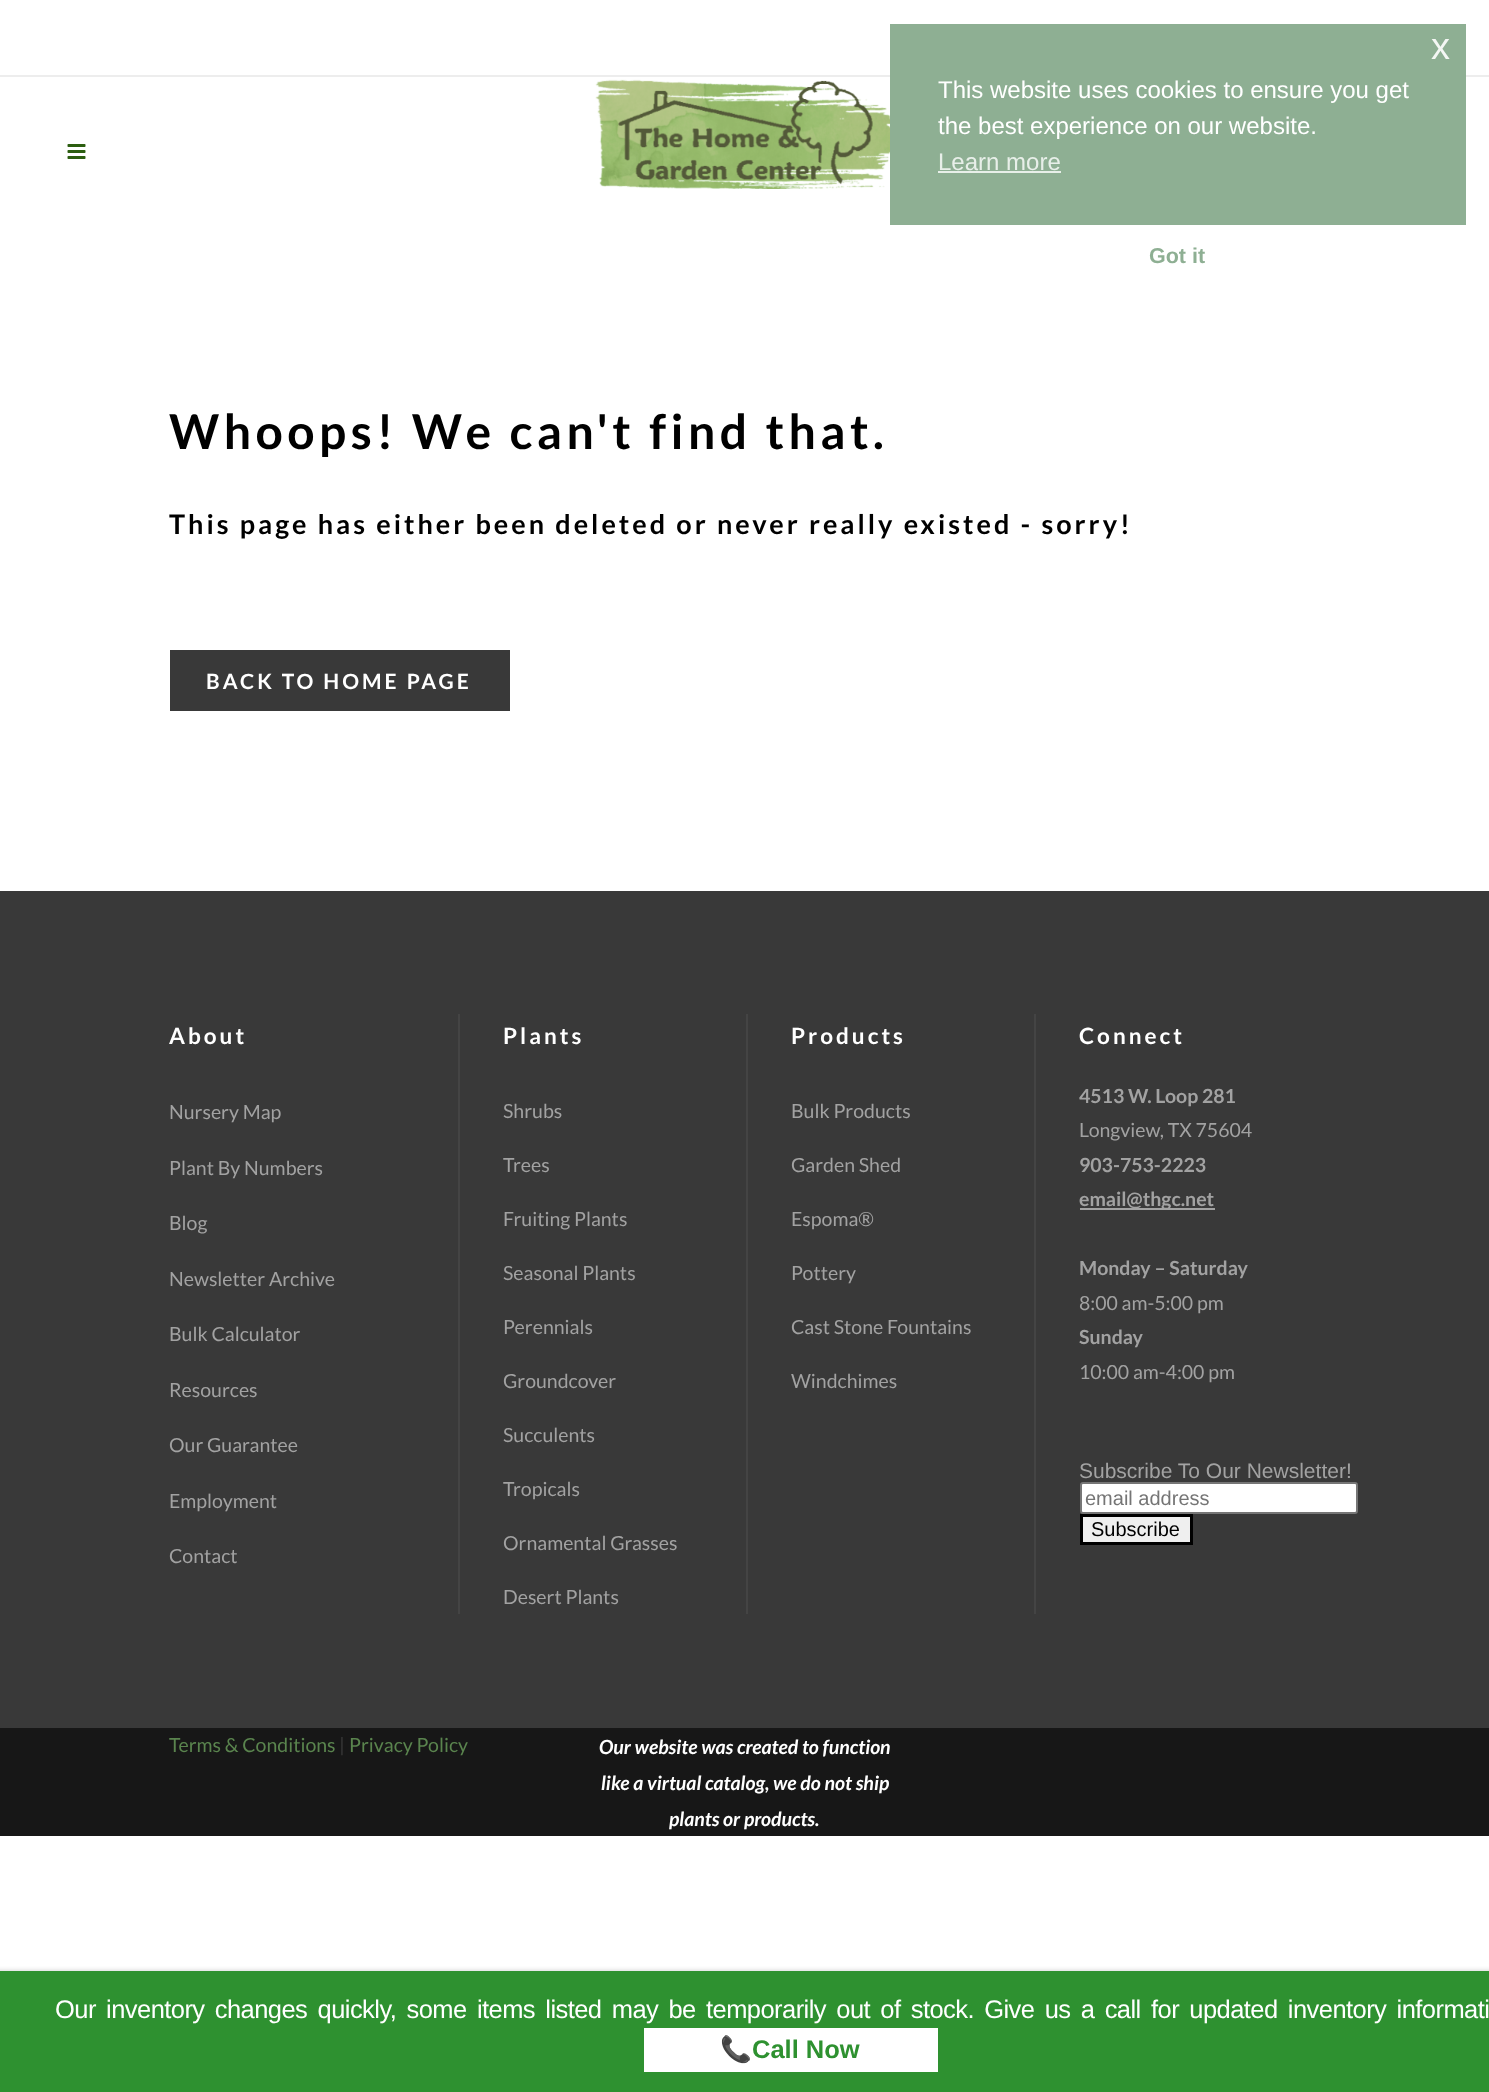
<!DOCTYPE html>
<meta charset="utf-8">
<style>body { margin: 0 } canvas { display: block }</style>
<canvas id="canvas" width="1489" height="2092"></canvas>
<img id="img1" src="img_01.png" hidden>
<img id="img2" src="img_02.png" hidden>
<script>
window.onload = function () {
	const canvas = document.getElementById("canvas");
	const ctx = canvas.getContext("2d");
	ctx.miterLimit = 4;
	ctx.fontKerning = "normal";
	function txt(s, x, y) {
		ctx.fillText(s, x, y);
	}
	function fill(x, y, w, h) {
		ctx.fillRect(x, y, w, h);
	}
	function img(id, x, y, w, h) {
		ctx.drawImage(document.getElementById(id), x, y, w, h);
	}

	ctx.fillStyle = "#FFFFFF";
	fill(0, 0, 1489, 2092);
	ctx.fillStyle = "#EDEDED";
	fill(0, 75, 1489, 2);
	ctx.fillStyle = "#8EAF93";
	fill(890, 24, 576, 201);
	ctx.fillStyle = "#E8EFE9";
	fill(938, 171, 123, 2);
	img("img1", 67, 144, 19, 15);
	img("img2", 595, 79, 295, 110);
	ctx.fillStyle = "#393939";
	fill(170, 650, 340, 61);
	fill(0, 891, 1489, 837);
	ctx.fillStyle = "#444444";
	fill(458, 1014, 2, 600);
	fill(746, 1014, 2, 600);
	fill(1034, 1014, 2, 600);
	ctx.fillStyle = "#A2A2A2";
	fill(1080, 1208, 135, 2);
	ctx.fillStyle = "#FFFFFF";
	ctx.beginPath();
	ctx.roundRect(1081, 1483, 276, 30, 2);
	ctx.fill();
	ctx.strokeStyle = "#767676";
	ctx.lineWidth = 2;
	ctx.stroke();
	ctx.fillStyle = "#EFEFEF";
	ctx.beginPath();
	ctx.rect(1081.5, 1515.5, 110, 28);
	ctx.fill();
	ctx.strokeStyle = "#000000";
	ctx.lineWidth = 3;
	ctx.stroke();
	ctx.fillStyle = "#171717";
	fill(0, 1728, 1489, 108);
	ctx.fillStyle = "rgba(0, 0, 0, 0.15)";
	ctx.filter = "blur(2px)";
	ctx.beginPath();
	ctx.rect(-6, 1970, 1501, 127);
	ctx.fill();
	ctx.filter = "none";
	ctx.fillStyle = "#2E9130";
	fill(0, 1971, 1489, 121);
	ctx.fillStyle = "#FFFFFF";
	fill(644, 2028, 294, 44);
	ctx.font = "38px Liberation Sans";
	ctx.fillStyle = "#F4F7F4";
	txt("x", 1431, 59);
	ctx.font = "24px Liberation Sans";
	ctx.fillStyle = "#FFFFFF";
	txt("This website uses cookies to ensure you get", 938, 98);
	txt("the best experience on our website.", 938, 134);
	ctx.fillStyle = "#E8EFE9";
	txt("Learn more", 938, 170);
	ctx.font = "bold 21.5px Liberation Sans";
	ctx.fillStyle = "#8EAF93";
	txt("Got it", 1149, 263);
	ctx.letterSpacing = "4.5px";
	ctx.font = "bold 48px Lato";
	ctx.fillStyle = "#000000";
	txt("Whoops! We can't find that.", 169, 449);
	ctx.letterSpacing = "3px";
	ctx.font = "bold 27px Lato";
	txt("This page has either been deleted or never really existed - sorry!", 169, 534);
	ctx.font = "bold 21px Lato";
	ctx.fillStyle = "#FFFFFF";
	txt("BACK TO HOME PAGE", 206, 689);
	ctx.font = "bold 22.5px Lato";
	txt("About", 169, 1044);
	ctx.letterSpacing = "0px";
	ctx.font = "19.5px Lato";
	ctx.fillStyle = "#A2A2A2";
	txt("Nursery Map", 169, 1119);
	txt("Plant By Numbers", 169, 1175);
	txt("Blog", 169, 1230);
	txt("Newsletter Archive", 169, 1286);
	txt("Bulk Calculator", 169, 1341);
	txt("Resources", 169, 1397);
	txt("Our Guarantee", 169, 1452);
	txt("Employment", 169, 1508);
	txt("Contact", 169, 1563);
	ctx.letterSpacing = "3px";
	ctx.font = "bold 22.5px Lato";
	ctx.fillStyle = "#FFFFFF";
	txt("Plants", 503, 1044);
	ctx.letterSpacing = "0px";
	ctx.font = "19.5px Lato";
	ctx.fillStyle = "#A2A2A2";
	txt("Shrubs", 503, 1118);
	txt("Trees", 503, 1172);
	txt("Fruiting Plants", 503, 1226);
	txt("Seasonal Plants", 503, 1280);
	txt("Perennials", 503, 1334);
	txt("Groundcover", 503, 1388);
	txt("Succulents", 503, 1442);
	txt("Tropicals", 503, 1496);
	txt("Ornamental Grasses", 503, 1550);
	txt("Desert Plants", 503, 1604);
	ctx.letterSpacing = "3px";
	ctx.font = "bold 22.5px Lato";
	ctx.fillStyle = "#FFFFFF";
	txt("Products", 791, 1044);
	ctx.letterSpacing = "0px";
	ctx.font = "19.5px Lato";
	ctx.fillStyle = "#A2A2A2";
	txt("Bulk Products", 791, 1118);
	txt("Garden Shed", 791, 1172);
	txt("Espoma®", 791, 1226);
	txt("Pottery", 791, 1280);
	txt("Cast Stone Fountains", 791, 1334);
	txt("Windchimes", 791, 1388);
	ctx.letterSpacing = "3px";
	ctx.font = "bold 22.5px Lato";
	ctx.fillStyle = "#FFFFFF";
	txt("Connect", 1079, 1044);
	ctx.letterSpacing = "0px";
	ctx.font = "bold 19.5px Lato";
	ctx.fillStyle = "#A2A2A2";
	txt("4513 W. Loop 281", 1079, 1103);
	ctx.font = "19.5px Lato";
	txt("Longview, TX 75604", 1079, 1137);
	ctx.font = "bold 19.5px Lato";
	txt("903-753-2223", 1079, 1172);
	txt("email@thgc.net", 1079, 1206);
	txt("Monday – Saturday", 1079, 1275);
	ctx.font = "19.5px Lato";
	txt("8:00 am-5:00 pm", 1079, 1310);
	ctx.font = "bold 19.5px Lato";
	txt("Sunday", 1079, 1344);
	ctx.font = "19.5px Lato";
	txt("10:00 am-4:00 pm", 1079, 1379);
	ctx.font = "21px Liberation Sans";
	txt("Subscribe To Our Newsletter!", 1079, 1478);
	ctx.font = "20px Liberation Sans";
	ctx.fillStyle = "#757575";
	txt("email address", 1085, 1505);
	ctx.fillStyle = "#000000";
	txt("Subscribe", 1091, 1536);
	ctx.font = "19.5px Lato";
	ctx.fillStyle = "#5A844E";
	txt("Terms & Conditions", 169, 1752);
	ctx.fillStyle = "#393939";
	txt("|", 339, 1752);
	ctx.fillStyle = "#5A844E";
	txt("Privacy Policy", 349, 1752);
	ctx.font = "italic bold 19.5px Lato";
	ctx.fillStyle = "#FFFFFF";
	txt("Our website was created to function", 599, 1754);
	txt("like a virtual catalog, we do not ship", 601, 1790);
	txt("plants or products.", 669, 1826);
	ctx.letterSpacing = "-0.56px";
	ctx.wordSpacing = "3.75px";
	ctx.font = "25.5px Liberation Sans";
	txt("Our inventory changes quickly, some items listed may be temporarily out of stock. Give us a call for updated inventory informati", 55, 2018);
	ctx.letterSpacing = "0px";
	ctx.wordSpacing = "0px";
	ctx.font = "bold 25.5px Noto Color Emoji";
	ctx.fillStyle = "#2E9130";
	txt("📞", 720, 2058);
	ctx.font = "bold 25.5px Liberation Sans";
	txt("Call Now", 752, 2058);
};
</script>
